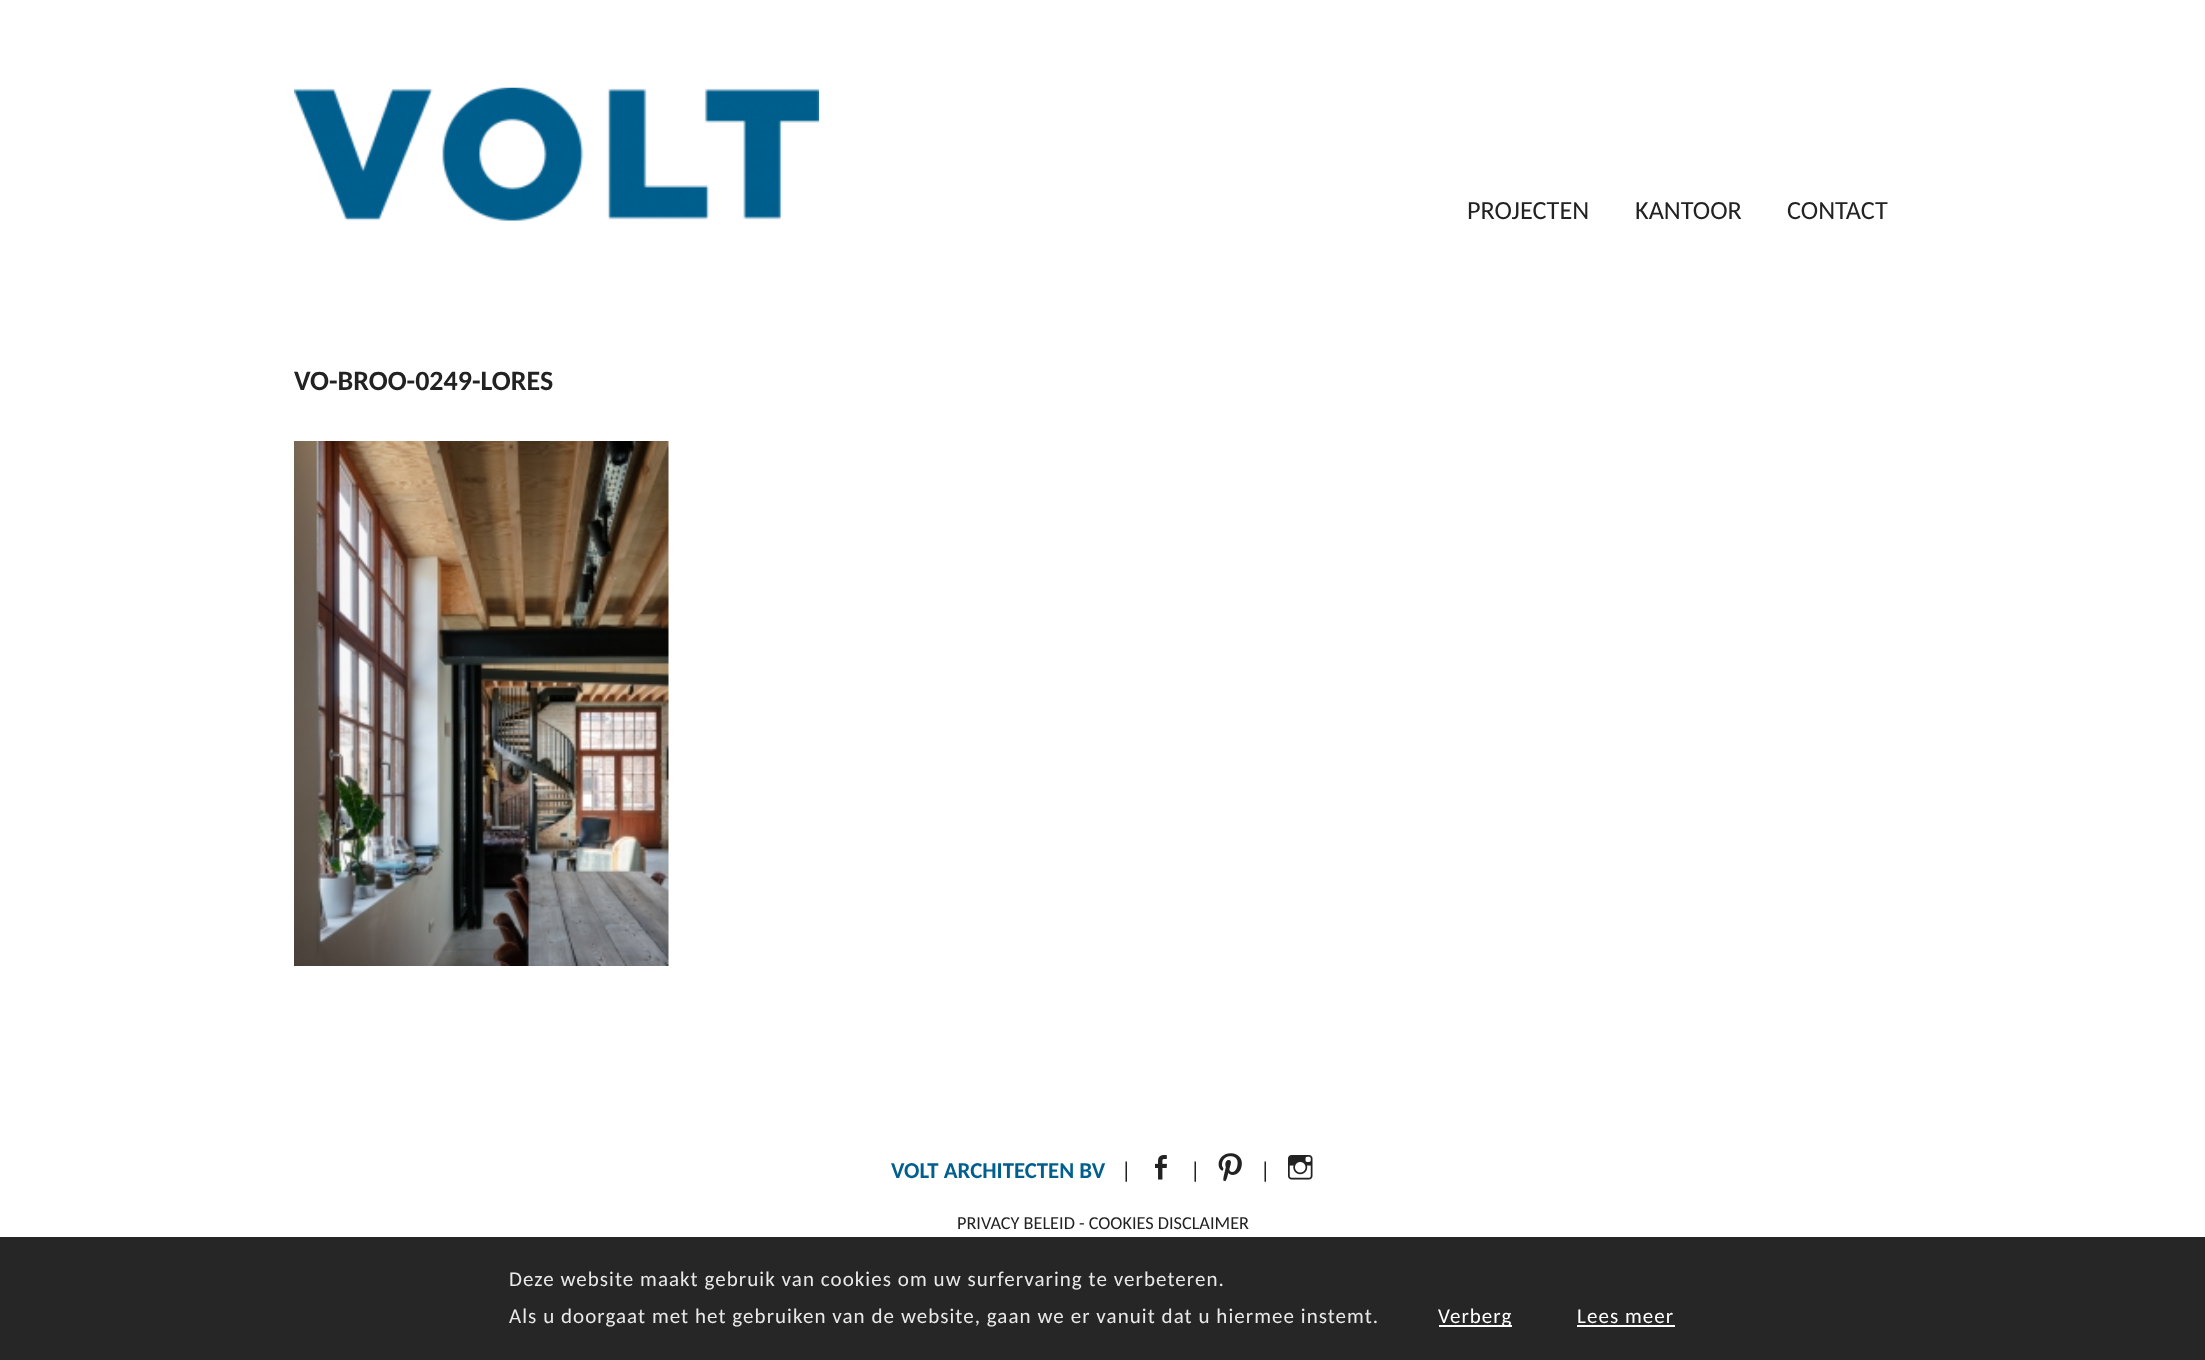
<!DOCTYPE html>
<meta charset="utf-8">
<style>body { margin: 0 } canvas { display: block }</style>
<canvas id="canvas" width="2205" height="1360"></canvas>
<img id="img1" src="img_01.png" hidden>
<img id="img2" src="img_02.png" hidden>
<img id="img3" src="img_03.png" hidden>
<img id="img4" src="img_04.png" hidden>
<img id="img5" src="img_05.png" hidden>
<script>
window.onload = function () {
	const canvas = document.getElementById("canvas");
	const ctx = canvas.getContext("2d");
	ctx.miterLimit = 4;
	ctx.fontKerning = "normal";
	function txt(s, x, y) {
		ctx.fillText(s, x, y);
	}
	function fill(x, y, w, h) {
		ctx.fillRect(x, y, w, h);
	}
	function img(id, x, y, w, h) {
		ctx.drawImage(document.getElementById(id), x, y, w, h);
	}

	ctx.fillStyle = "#FFFFFF";
	fill(0, 0, 2205, 1360);
	img("img1", 294, 87, 525, 134);
	img("img2", 294, 441, 375, 525);
	img("img3", 1155, 1155, 12, 25);
	img("img4", 1218, 1153, 24, 29);
	img("img5", 1288, 1155, 25, 25);
	ctx.fillStyle = "#262626";
	fill(0, 1237, 2205, 123);
	ctx.fillStyle = "#FFFFFF";
	fill(1439, 1325, 73, 2);
	fill(1577, 1325, 98, 2);
	ctx.font = "26.25px Carlito";
	ctx.fillStyle = "#222222";
	txt("PROJECTEN", 1467, 219);
	txt("KANTOOR", 1635, 219);
	txt("CONTACT", 1787, 219);
	ctx.font = "bold 28px Carlito";
	txt("VO-BROO-0249-LORES", 294, 390);
	ctx.font = "bold 22.75px Carlito";
	ctx.fillStyle = "#005F8E";
	txt("VOLT ARCHITECTEN BV", 891, 1178);
	ctx.font = "22.75px Carlito";
	ctx.fillStyle = "#222222";
	txt("|", 1121, 1178);
	txt("|", 1190, 1178);
	txt("|", 1260, 1178);
	ctx.font = "18.25px Carlito";
	txt("PRIVACY BELEID - COOKIES DISCLAIMER", 957, 1229);
	ctx.letterSpacing = "1.05px";
	ctx.font = "21px Carlito";
	ctx.fillStyle = "#E9E9E9";
	txt("Deze website maakt gebruik van cookies om uw surfervaring te verbeteren.", 509, 1286);
	txt("Als u doorgaat met het gebruiken van de website, gaan we er vanuit dat u hiermee instemt.", 509, 1323);
	ctx.fillStyle = "#FFFFFF";
	txt("Verberg", 1438, 1323);
	txt("Lees meer", 1577, 1323);
};
</script>
